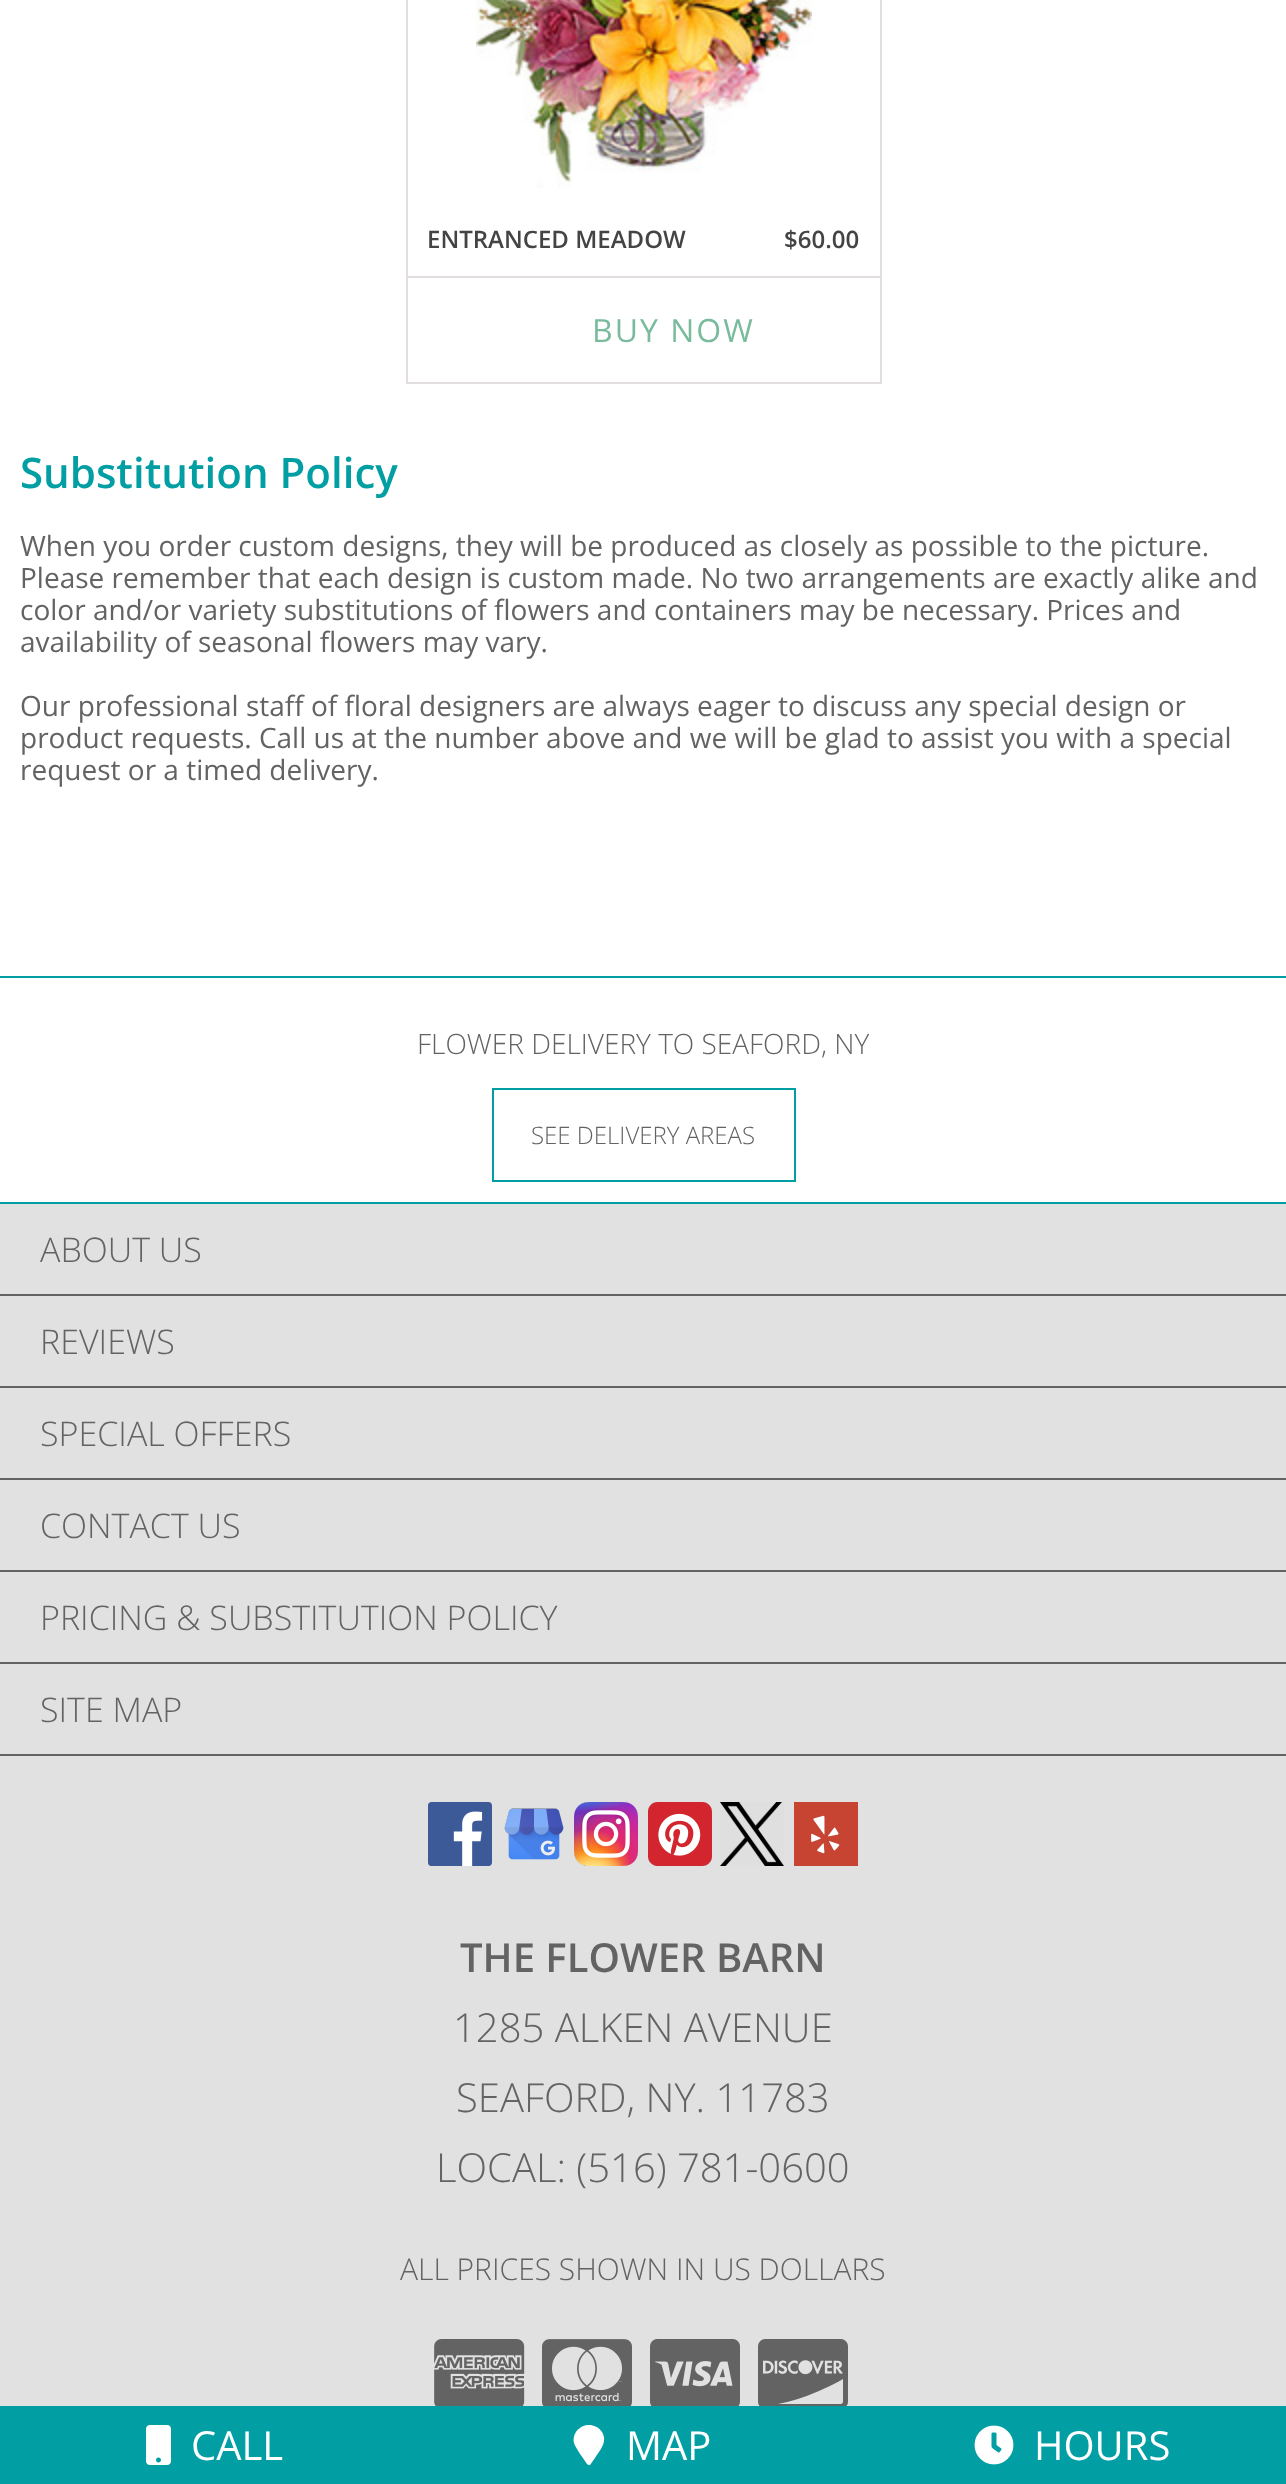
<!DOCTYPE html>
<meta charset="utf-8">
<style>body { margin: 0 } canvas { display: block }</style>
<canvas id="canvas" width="1286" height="2484"></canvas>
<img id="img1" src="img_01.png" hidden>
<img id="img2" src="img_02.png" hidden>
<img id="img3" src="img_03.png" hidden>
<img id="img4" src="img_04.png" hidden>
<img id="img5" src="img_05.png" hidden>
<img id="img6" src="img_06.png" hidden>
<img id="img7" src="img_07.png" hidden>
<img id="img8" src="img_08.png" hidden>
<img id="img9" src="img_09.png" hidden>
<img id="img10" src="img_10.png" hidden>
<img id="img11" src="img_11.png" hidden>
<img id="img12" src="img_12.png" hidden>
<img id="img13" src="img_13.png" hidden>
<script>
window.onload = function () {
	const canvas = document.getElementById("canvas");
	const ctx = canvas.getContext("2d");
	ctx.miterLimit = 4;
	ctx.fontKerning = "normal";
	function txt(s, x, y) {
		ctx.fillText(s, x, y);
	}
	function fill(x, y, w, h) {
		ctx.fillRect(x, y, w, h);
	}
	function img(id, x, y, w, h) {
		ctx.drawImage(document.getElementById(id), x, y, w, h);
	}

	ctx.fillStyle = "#FFFFFF";
	fill(0, 0, 1286, 2484);
	ctx.fillStyle = "#E2DEDD";
	fill(880, 0, 2, 384);
	fill(406, 382, 476, 2);
	fill(406, 0, 2, 384);
	img("img1", 476, 0, 336, 188);
	fill(408, 276, 472, 2);
	ctx.fillStyle = "#019EA3";
	fill(0, 976, 1286, 2);
	fill(0, 1202, 1286, 2);
	ctx.strokeStyle = "#019EA3";
	ctx.lineWidth = 2;
	ctx.strokeRect(493, 1089, 302, 92);
	ctx.fillStyle = "#E1E1E1";
	fill(0, 1204, 1286, 1202);
	ctx.fillStyle = "#636363";
	fill(0, 1294, 1286, 2);
	fill(0, 1386, 1286, 2);
	fill(0, 1478, 1286, 2);
	fill(0, 1570, 1286, 2);
	fill(0, 1662, 1286, 2);
	fill(0, 1754, 1286, 2);
	img("img2", 428, 1802, 64, 64);
	img("img3", 504, 1808, 60, 52);
	img("img4", 574, 1802, 64, 64);
	img("img5", 648, 1802, 64, 64);
	img("img6", 720, 1802, 64, 64);
	img("img7", 794, 1802, 64, 64);
	img("img8", 434, 2339, 91, 67);
	img("img9", 542, 2339, 90, 67);
	img("img10", 650, 2339, 90, 67);
	img("img11", 758, 2339, 90, 67);
	ctx.fillStyle = "#019EA3";
	fill(0, 2406, 1286, 78);
	img("img12", 146, 2425, 25, 40);
	ctx.fillStyle = "#FFFFFF";
	ctx.beginPath();
	ctx.moveTo(587, 2464);
	ctx.bezierCurveTo(584, 2459, 576, 2449, 574, 2443);
	ctx.bezierCurveTo(571, 2427, 592, 2418, 602, 2432);
	ctx.bezierCurveTo(608, 2442, 600, 2450, 595, 2458);
	ctx.lineTo(590, 2465);
	ctx.bezierCurveTo(589, 2465, 588, 2465, 587, 2464);
	ctx.closePath();
	ctx.fill();
	img("img13", 974, 2425, 40, 40);
	ctx.font = "600 24px Open Sans";
	ctx.fillStyle = "#444444";
	txt("ENTRANCED MEADOW", 427, 248);
	txt("$60.00", 784, 248);
	ctx.letterSpacing = "2px";
	ctx.font = "32px Open Sans";
	ctx.fillStyle = "#7ABB9D";
	txt("BUY NOW", 592, 342);
	ctx.letterSpacing = "0px";
	ctx.font = "600 42px Open Sans";
	ctx.fillStyle = "#019EA3";
	txt("Substitution Policy", 20, 488);
	ctx.font = "28px Open Sans";
	ctx.fillStyle = "#636363";
	txt("When you order custom designs, they will be produced as closely as possible to the picture.", 20, 556);
	txt("Please remember that each design is custom made. No two arrangements are exactly alike and", 20, 588);
	txt("color and/or variety substitutions of flowers and containers may be necessary. Prices and", 20, 620);
	txt("availability of seasonal flowers may vary.", 20, 652);
	txt("Our professional staff of floral designers are always eager to discuss any special design or", 20, 716);
	txt("product requests. Call us at the number above and we will be glad to assist you with a special", 20, 748);
	txt("request or a timed delivery.", 20, 780);
	ctx.font = "300 28px Open Sans";
	txt("FLOWER DELIVERY TO SEAFORD, NY", 417, 1054);
	ctx.font = "300 24px Open Sans";
	txt("SEE DELIVERY AREAS", 531, 1144);
	ctx.font = "300 34px Open Sans";
	txt("ABOUT US", 40, 1262);
	txt("REVIEWS", 40, 1354);
	txt("SPECIAL OFFERS", 40, 1446);
	txt("CONTACT US", 40, 1538);
	txt("PRICING & SUBSTITUTION POLICY", 40, 1630);
	txt("SITE MAP", 40, 1722);
	ctx.font = "600 40px Open Sans";
	txt("THE FLOWER BARN", 460, 1972);
	ctx.font = "300 40px Open Sans";
	txt("1285 ALKEN AVENUE", 453, 2042);
	txt("SEAFORD, NY. 11783", 456, 2112);
	txt("LOCAL: (516) 781-0600", 436, 2182);
	ctx.font = "300 30px Open Sans";
	txt("ALL PRICES SHOWN IN US DOLLARS", 400, 2280);
	ctx.font = "40px Open Sans";
	ctx.fillStyle = "#FFFFFF";
	txt("CALL", 191, 2460);
	txt("MAP", 626, 2460);
	txt("HOURS", 1034, 2460);
};
</script>
